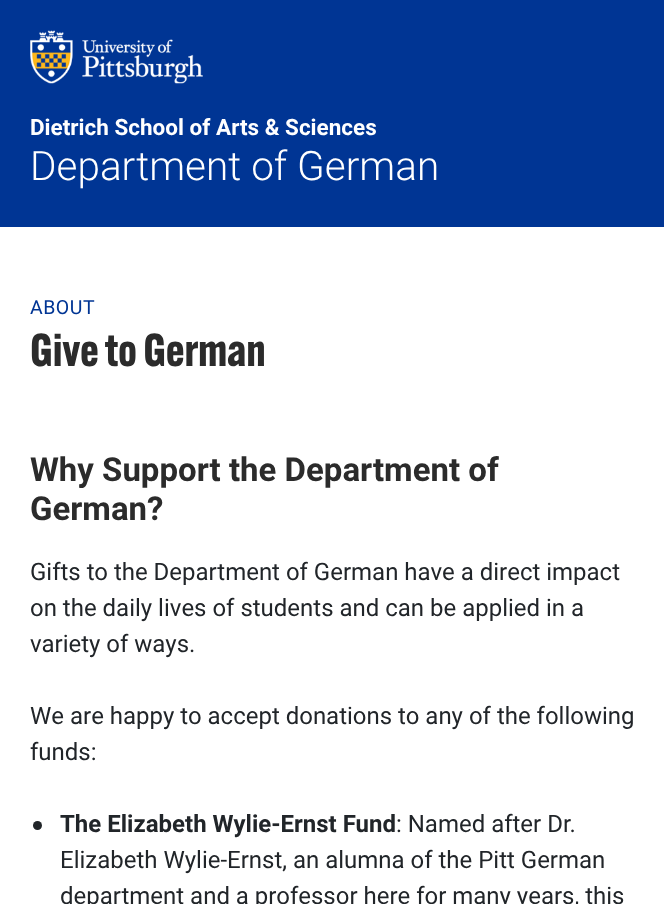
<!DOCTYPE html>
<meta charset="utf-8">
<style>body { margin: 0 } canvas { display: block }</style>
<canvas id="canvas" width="664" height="904"></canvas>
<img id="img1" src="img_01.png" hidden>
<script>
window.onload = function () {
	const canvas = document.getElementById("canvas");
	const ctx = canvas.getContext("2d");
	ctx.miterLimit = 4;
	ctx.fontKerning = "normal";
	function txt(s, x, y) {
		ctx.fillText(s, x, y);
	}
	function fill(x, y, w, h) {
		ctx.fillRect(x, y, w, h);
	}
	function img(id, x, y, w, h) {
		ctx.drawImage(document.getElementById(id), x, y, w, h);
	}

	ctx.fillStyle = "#FFFFFF";
	fill(0, 0, 664, 904);
	ctx.fillStyle = "#003594";
	fill(0, 0, 664, 227);
	img("img1", 30, 30, 173, 54);
	ctx.fillStyle = "#212529";
	ctx.beginPath();
	ctx.arc(37.5, 825.5, 4.5, 0, Math.PI * 2);
	ctx.fill();
	ctx.font = "bold 22.5px Roboto";
	ctx.fillStyle = "#FFFFFF";
	txt("Dietrich School of Arts & Sciences", 30, 135);
	ctx.font = "300 40.5px Roboto";
	txt("Department of German", 30, 180);
	ctx.letterSpacing = "0.5px";
	ctx.font = "19.5px Roboto";
	ctx.fillStyle = "#003594";
	txt("ABOUT", 30, 314);
	ctx.letterSpacing = "0px";
	ctx.font = "bold 45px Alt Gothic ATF";
	ctx.fillStyle = "#2B2B2B";
	txt("Give to German", 30, 366);
	ctx.font = "bold 33px Roboto";
	txt("Why Support the Department of", 30, 481);
	txt("German?", 30, 520);
	ctx.font = "24px Roboto";
	ctx.fillStyle = "#212529";
	txt("Gifts to the Department of German have a direct impact", 30, 580);
	txt("on the daily lives of students and can be applied in a", 30, 616);
	txt("variety of ways.", 30, 652);
	txt("We are happy to accept donations to any of the following", 30, 724);
	txt("funds:", 30, 760);
	ctx.font = "bold 24px Roboto";
	txt("The Elizabeth Wylie-Ernst Fund", 60, 832);
	ctx.font = "24px Roboto";
	txt(": Named after Dr.", 396, 832);
	txt("Elizabeth Wylie-Ernst, an alumna of the Pitt German", 60, 868);
	txt("department and a professor here for many years, this", 60, 904);
};
</script>
